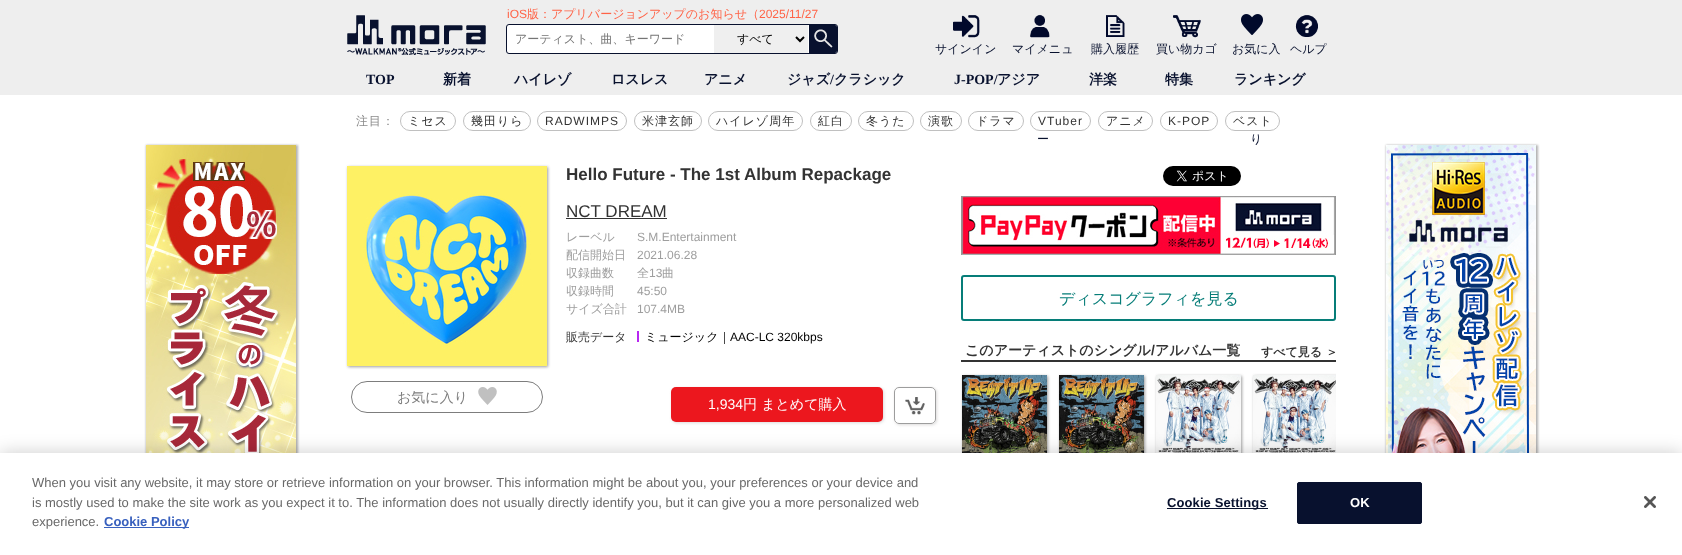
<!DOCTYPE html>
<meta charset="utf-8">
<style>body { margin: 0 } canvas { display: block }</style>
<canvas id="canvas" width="1682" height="555"></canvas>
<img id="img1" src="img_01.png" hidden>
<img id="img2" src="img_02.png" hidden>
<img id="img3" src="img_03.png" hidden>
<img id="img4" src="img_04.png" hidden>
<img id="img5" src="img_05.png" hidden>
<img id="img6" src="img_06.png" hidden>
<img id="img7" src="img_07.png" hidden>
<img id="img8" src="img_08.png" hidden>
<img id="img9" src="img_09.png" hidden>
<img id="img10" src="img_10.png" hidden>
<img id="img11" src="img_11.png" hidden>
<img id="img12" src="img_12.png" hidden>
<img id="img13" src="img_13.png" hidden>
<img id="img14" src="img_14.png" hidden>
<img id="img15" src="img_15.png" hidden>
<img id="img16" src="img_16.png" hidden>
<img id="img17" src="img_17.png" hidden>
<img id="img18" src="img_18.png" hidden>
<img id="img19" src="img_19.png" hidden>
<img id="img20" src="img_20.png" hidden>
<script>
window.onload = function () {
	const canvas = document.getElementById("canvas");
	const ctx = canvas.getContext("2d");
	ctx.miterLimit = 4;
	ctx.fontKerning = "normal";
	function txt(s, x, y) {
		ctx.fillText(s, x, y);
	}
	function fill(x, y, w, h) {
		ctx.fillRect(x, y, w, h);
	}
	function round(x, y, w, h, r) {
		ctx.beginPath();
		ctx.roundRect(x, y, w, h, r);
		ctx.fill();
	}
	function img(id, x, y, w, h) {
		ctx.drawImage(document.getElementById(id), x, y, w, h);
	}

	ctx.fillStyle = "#FFFFFF";
	fill(0, 0, 1682, 555);
	ctx.fillStyle = "#EEEEEE";
	fill(0, 0, 1682, 95);
	img("img1", 347, 15, 139, 40);
	ctx.fillStyle = "#FFFFFF";
	ctx.beginPath();
	ctx.roundRect(506.5, 24.5, 331, 29, 2.5);
	ctx.fill();
	ctx.strokeStyle = "#08112E";
	ctx.stroke();
	ctx.fillStyle = "#EFEFEF";
	fill(714, 25, 94, 28);
	ctx.beginPath();
	ctx.moveTo(796, 37);
	ctx.lineTo(800, 41);
	ctx.lineTo(804, 37);
	ctx.strokeStyle = "#000000";
	ctx.lineWidth = 2;
	ctx.stroke();
	img("img2", 809, 25, 28, 28);
	img("img3", 953, 15, 27, 23);
	img("img4", 1030, 14, 20, 24);
	img("img5", 1106, 15, 19, 22);
	img("img6", 1173, 15, 28, 23);
	img("img7", 1241, 14, 22, 21);
	img("img8", 1295, 15, 23, 22);
	ctx.fillStyle = "rgba(0, 0, 0, 0.3)";
	ctx.filter = "blur(1px)";
	ctx.beginPath();
	ctx.rect(146, 145, 152, 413);
	ctx.fill();
	ctx.filter = "none";
	img("img9", 146, 145, 150, 308);
	ctx.filter = "blur(1px)";
	ctx.beginPath();
	ctx.rect(1386, 145, 152, 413);
	ctx.fill();
	ctx.filter = "none";
	img("img10", 1386, 145, 150, 308);
	ctx.beginPath();
	ctx.roundRect(400.5, 111.5, 55, 19, 9.5);
	ctx.strokeStyle = "#C0C0C0";
	ctx.lineWidth = 1;
	ctx.stroke();
	ctx.beginPath();
	ctx.roundRect(463.5, 111.5, 67, 19, 9.5);
	ctx.stroke();
	ctx.beginPath();
	ctx.roundRect(537.5, 111.5, 89, 19, 9.5);
	ctx.stroke();
	ctx.beginPath();
	ctx.roundRect(634.5, 111.5, 67, 19, 9.5);
	ctx.stroke();
	ctx.beginPath();
	ctx.roundRect(708.5, 111.5, 94, 19, 9.5);
	ctx.stroke();
	ctx.beginPath();
	ctx.roundRect(810.5, 111.5, 41, 19, 9.5);
	ctx.stroke();
	ctx.beginPath();
	ctx.roundRect(858.5, 111.5, 55, 19, 9.5);
	ctx.stroke();
	ctx.beginPath();
	ctx.roundRect(920.5, 111.5, 41, 19, 9.5);
	ctx.stroke();
	ctx.beginPath();
	ctx.roundRect(968.5, 111.5, 55, 19, 9.5);
	ctx.stroke();
	ctx.beginPath();
	ctx.roundRect(1030.5, 111.5, 60, 19, 9.5);
	ctx.stroke();
	ctx.beginPath();
	ctx.roundRect(1098.5, 111.5, 54, 19, 9.5);
	ctx.stroke();
	ctx.beginPath();
	ctx.roundRect(1160.5, 111.5, 57, 19, 9.5);
	ctx.stroke();
	ctx.beginPath();
	ctx.roundRect(1225.5, 111.5, 54, 19, 9.5);
	ctx.stroke();
	ctx.fillStyle = "#333333";
	fill(566, 218, 101, 1);
	ctx.fillStyle = "#B827F2";
	fill(637, 331, 2, 11);
	ctx.fillStyle = "#9E9E9E";
	ctx.filter = "blur(1.5px)";
	ctx.beginPath();
	ctx.rect(348, 167, 200, 200);
	ctx.fill();
	ctx.filter = "none";
	img("img11", 347, 166, 200, 200);
	ctx.beginPath();
	ctx.roundRect(351.5, 381.5, 191, 31, 15.5);
	ctx.strokeStyle = "#7D7D7D";
	ctx.stroke();
	img("img12", 478, 387, 19, 18);
	ctx.fillStyle = "#DCDBDB";
	ctx.filter = "blur(1.5px)";
	ctx.beginPath();
	ctx.roundRect(672, 388, 212, 35, 5);
	ctx.fill();
	ctx.filter = "none";
	ctx.fillStyle = "#EC171E";
	round(671, 387, 212, 35, 5);
	ctx.save();
	ctx.beginPath();
	ctx.moveTo(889, 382);
	ctx.lineTo(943, 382);
	ctx.lineTo(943, 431);
	ctx.lineTo(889, 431);
	ctx.closePath();
	ctx.moveTo(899, 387);
	ctx.lineTo(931, 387);
	ctx.bezierCurveTo(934, 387, 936, 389, 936, 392);
	ctx.lineTo(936, 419);
	ctx.bezierCurveTo(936, 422, 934, 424, 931, 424);
	ctx.lineTo(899, 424);
	ctx.bezierCurveTo(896, 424, 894, 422, 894, 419);
	ctx.lineTo(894, 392);
	ctx.bezierCurveTo(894, 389, 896, 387, 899, 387);
	ctx.closePath();
	ctx.clip("evenodd");
	ctx.fillStyle = "#DCDBDB";
	ctx.filter = "blur(1.5px)";
	ctx.beginPath();
	ctx.roundRect(895, 388, 42, 37, 5);
	ctx.fill();
	ctx.filter = "none";
	ctx.restore();
	ctx.beginPath();
	ctx.roundRect(894.5, 387.5, 41, 36, 4.5);
	ctx.strokeStyle = "#9D9D9D";
	ctx.stroke();
	img("img13", 905, 397, 20, 18);
	img("img14", 1163, 166, 78, 20);
	img("img15", 961, 196, 375, 59);
	ctx.beginPath();
	ctx.roundRect(962, 276, 373, 44, 2);
	ctx.strokeStyle = "#067D78";
	ctx.lineWidth = 2;
	ctx.stroke();
	ctx.fillStyle = "#333333";
	fill(961, 360, 375, 2);
	ctx.fillStyle = "#9E9E9E";
	ctx.filter = "blur(1.5px)";
	ctx.beginPath();
	ctx.rect(963, 376, 85, 85);
	ctx.fill();
	ctx.filter = "none";
	img("img16", 962, 375, 85, 78);
	ctx.filter = "blur(1.5px)";
	ctx.beginPath();
	ctx.rect(1060, 376, 85, 85);
	ctx.fill();
	ctx.filter = "none";
	img("img17", 1059, 375, 85, 78);
	ctx.filter = "blur(1.5px)";
	ctx.beginPath();
	ctx.rect(1157, 376, 85, 85);
	ctx.fill();
	ctx.filter = "none";
	img("img18", 1156, 375, 85, 78);
	ctx.save();
	ctx.beginPath();
	ctx.rect(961, 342, 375, 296);
	ctx.clip();
	ctx.filter = "blur(1.5px)";
	ctx.beginPath();
	ctx.rect(1254, 376, 85, 85);
	ctx.fill();
	ctx.filter = "none";
	ctx.restore();
	img("img19", 1253, 375, 83, 78);
	ctx.fillStyle = "rgba(0, 0, 0, 0.2)";
	ctx.filter = "blur(9px)";
	ctx.beginPath();
	ctx.rect(0, 453, 1682, 102);
	ctx.fill();
	ctx.filter = "none";
	ctx.fillStyle = "#FFFFFF";
	fill(0, 453, 1682, 102);
	ctx.fillStyle = "#3860BE";
	fill(104, 527, 85, 1);
	ctx.fillStyle = "#08112E";
	fill(1167, 508, 101, 1);
	ctx.beginPath();
	ctx.roundRect(1297.5, 482.5, 124, 41, 1.5);
	ctx.fill();
	ctx.strokeStyle = "#08112E";
	ctx.lineWidth = 1;
	ctx.stroke();
	img("img20", 1644, 496, 12, 12);
	ctx.font = "12px Liberation Sans";
	ctx.fillStyle = "#FF6347";
	txt("iOS", 507, 18);
	ctx.font = "500 12px WenQuanYi Zen Hei";
	txt("版：アプリバージョンアップのお知らせ（", 527, 18);
	ctx.font = "12px Liberation Sans";
	txt("2025/11/27", 759, 18);
	ctx.font = "500 12px WenQuanYi Zen Hei";
	ctx.fillStyle = "#757575";
	txt("アーティスト、曲、キーワード", 515, 43);
	ctx.fillStyle = "#000000";
	txt("すべて", 737, 43);
	ctx.fillStyle = "#08112E";
	txt("サインイン", 935, 53);
	txt("マイメニュ", 1012, 53);
	txt("ー", 1037, 143);
	txt("購入履歴", 1091, 53);
	txt("買い物カゴ", 1156, 53);
	txt("お気に入", 1232, 53);
	txt("り", 1250, 143);
	txt("ヘルプ", 1290, 53);
	ctx.font = "bold 14px Liberation Serif";
	txt("TOP", 366, 84);
	ctx.font = "bold 14px WenQuanYi Zen Hei";
	txt("新着", 443, 84);
	txt("ハイレゾ", 514, 84);
	txt("ロスレス", 611, 84);
	txt("アニメ", 704, 84);
	txt("ジャズ", 787, 84);
	ctx.font = "bold 14px Liberation Serif";
	txt("/", 830, 84);
	ctx.font = "bold 14px WenQuanYi Zen Hei";
	txt("クラシック", 834, 84);
	ctx.font = "bold 14px Liberation Serif";
	txt("J-POP/", 954, 84);
	ctx.font = "bold 14px WenQuanYi Zen Hei";
	txt("アジア", 997, 84);
	txt("洋楽", 1089, 84);
	txt("特集", 1165, 84);
	txt("ランキング", 1234, 84);
	ctx.letterSpacing = "1px";
	ctx.font = "500 12px WenQuanYi Zen Hei";
	ctx.fillStyle = "#8C8C8C";
	txt("注目：", 356, 125);
	ctx.fillStyle = "#333333";
	txt("ミセス", 408, 125);
	txt("幾田りら", 471, 125);
	ctx.font = "12px Liberation Sans";
	txt("RADWIMPS", 545, 125);
	ctx.font = "500 12px WenQuanYi Zen Hei";
	txt("米津玄師", 642, 125);
	txt("ハイレゾ周年", 716, 125);
	txt("紅白", 818, 125);
	txt("冬うた", 866, 125);
	txt("演歌", 928, 125);
	txt("ドラマ", 976, 125);
	ctx.font = "12px Liberation Sans";
	txt("VTuber", 1038, 125);
	ctx.font = "500 12px WenQuanYi Zen Hei";
	txt("アニメ", 1106, 125);
	ctx.font = "12px Liberation Sans";
	txt("K-POP", 1168, 125);
	ctx.font = "500 12px WenQuanYi Zen Hei";
	txt("ベスト", 1233, 125);
	ctx.letterSpacing = "0px";
	ctx.font = "bold 17px Liberation Sans";
	txt("Hello Future - The 1st Album Repackage", 566, 180);
	ctx.font = "17px Liberation Sans";
	txt("NCT DREAM", 566, 217);
	ctx.font = "500 12px WenQuanYi Zen Hei";
	ctx.fillStyle = "#9E9E9E";
	txt("レーベル", 566, 241);
	txt("配信開始日", 566, 259);
	txt("収録曲数", 566, 277);
	txt("収録時間", 566, 295);
	txt("サイズ合計", 566, 313);
	ctx.fillStyle = "#333333";
	txt("販売データ", 566, 341);
	ctx.font = "12px Liberation Sans";
	ctx.fillStyle = "#9E9E9E";
	txt("S.M.Entertainment", 637, 241);
	txt("2021.06.28", 637, 259);
	ctx.font = "500 12px WenQuanYi Zen Hei";
	txt("全", 637, 277);
	ctx.font = "12px Liberation Sans";
	txt("13", 649, 277);
	ctx.font = "500 12px WenQuanYi Zen Hei";
	txt("曲", 662, 277);
	ctx.font = "12px Liberation Sans";
	txt("45:50", 637, 295);
	txt("107.4MB", 637, 313);
	ctx.font = "500 12px WenQuanYi Zen Hei";
	ctx.fillStyle = "#000000";
	txt("ミュージック｜", 645, 341);
	ctx.font = "12px Liberation Sans";
	txt("AAC-LC 320kbps", 730, 341);
	ctx.font = "500 14px WenQuanYi Zen Hei";
	ctx.fillStyle = "#7D7D7D";
	txt("お気に入り", 397, 402);
	ctx.font = "14px Liberation Sans";
	ctx.fillStyle = "#FFFFFF";
	txt("1,934", 708, 409);
	ctx.font = "500 14px WenQuanYi Zen Hei";
	txt("円 まとめて購入", 743, 409);
	ctx.font = "500 16px WenQuanYi Zen Hei";
	ctx.fillStyle = "#067D78";
	txt("ディスコグラフィを見る", 1059, 304);
	ctx.font = "bold 14px WenQuanYi Zen Hei";
	ctx.fillStyle = "#333333";
	txt("このアーティストのシングル", 965, 355);
	ctx.font = "bold 14px Liberation Sans";
	txt("/", 1151, 355);
	ctx.font = "bold 14px WenQuanYi Zen Hei";
	txt("アルバム一覧", 1155, 355);
	ctx.font = "bold 12px WenQuanYi Zen Hei";
	txt("すべて見る ＞", 1261, 356);
	ctx.font = "13px Liberation Sans";
	ctx.fillStyle = "#696969";
	txt("When you visit any website, it may store or retrieve information on your browser. This information might be about you, your preferences or your device and", 32, 487);
	txt("is mostly used to make the site work as you expect it to. The information does not usually directly identify you, but it can give you a more personalized web", 32, 507);
	txt("experience.", 32, 526);
	ctx.font = "bold 13px Liberation Sans";
	ctx.fillStyle = "#3860BE";
	txt("Cookie Policy", 104, 526);
	ctx.letterSpacing = "0.1px";
	ctx.fillStyle = "#08112E";
	txt("Cookie Settings", 1167, 507);
	ctx.fillStyle = "#FFFFFF";
	txt("OK", 1350, 507);
};
</script>
